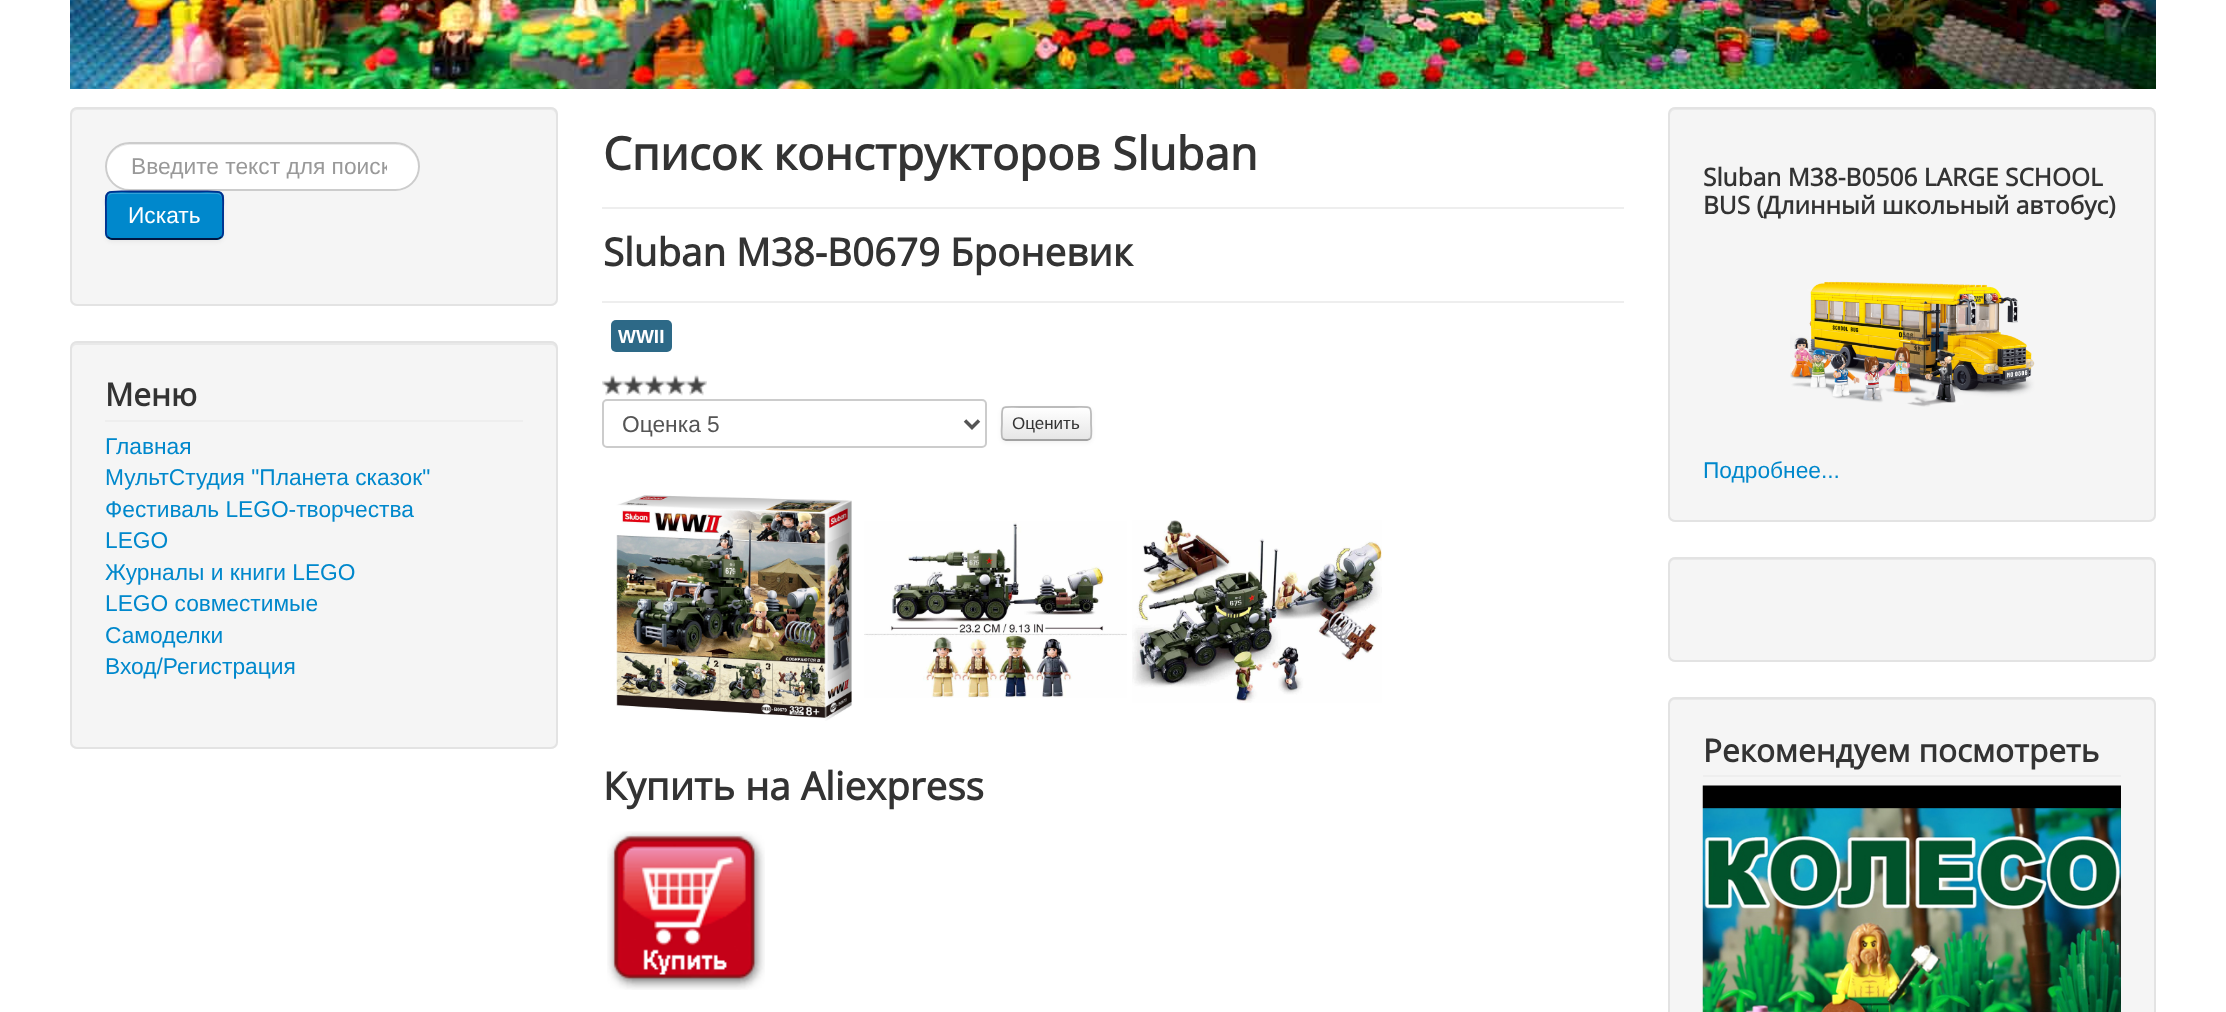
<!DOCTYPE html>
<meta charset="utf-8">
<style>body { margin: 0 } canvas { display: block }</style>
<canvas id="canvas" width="2226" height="1012"></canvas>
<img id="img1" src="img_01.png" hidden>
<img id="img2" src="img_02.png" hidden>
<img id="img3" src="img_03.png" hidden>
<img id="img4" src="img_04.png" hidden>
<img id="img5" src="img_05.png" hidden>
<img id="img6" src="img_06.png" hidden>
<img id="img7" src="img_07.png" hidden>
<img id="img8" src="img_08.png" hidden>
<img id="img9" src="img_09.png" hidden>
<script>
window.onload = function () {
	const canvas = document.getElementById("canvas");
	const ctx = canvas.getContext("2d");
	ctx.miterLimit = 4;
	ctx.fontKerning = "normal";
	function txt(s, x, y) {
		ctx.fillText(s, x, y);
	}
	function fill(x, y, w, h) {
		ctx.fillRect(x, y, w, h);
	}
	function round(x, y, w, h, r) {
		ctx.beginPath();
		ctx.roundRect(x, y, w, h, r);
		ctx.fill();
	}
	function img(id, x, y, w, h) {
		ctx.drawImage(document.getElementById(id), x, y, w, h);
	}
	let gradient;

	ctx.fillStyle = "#FFFFFF";
	fill(0, 0, 2226, 1012);
	img("img1", 70, 0, 2086, 89);
	ctx.fillStyle = "#F5F5F5";
	round(70, 107, 488, 199, 7);
	ctx.fillStyle = "#E9E9E9";
	ctx.beginPath();
	ctx.moveTo(77, 110);
	ctx.lineTo(551, 110);
	ctx.bezierCurveTo(554, 110, 556, 113, 556, 116);
	ctx.lineTo(556, 301);
	ctx.lineTo(555, 304);
	ctx.bezierCurveTo(556, 303, 557, 301, 557, 300);
	ctx.lineTo(557, 114);
	ctx.bezierCurveTo(557, 111, 555, 109, 552, 109);
	ctx.lineTo(77, 109);
	ctx.bezierCurveTo(74, 109, 72, 111, 72, 114);
	ctx.lineTo(72, 116);
	ctx.bezierCurveTo(72, 113, 74, 110, 77, 110);
	ctx.closePath();
	ctx.fill();
	ctx.beginPath();
	ctx.roundRect(71, 108, 486, 197, 6);
	ctx.strokeStyle = "#E3E3E3";
	ctx.lineWidth = 2;
	ctx.stroke();
	ctx.fillStyle = "#FFFFFF";
	round(105, 142, 315, 49, 24.5);
	ctx.fillStyle = "#ECECEC";
	ctx.beginPath();
	ctx.moveTo(130, 145);
	ctx.lineTo(396, 145);
	ctx.bezierCurveTo(408, 145, 418, 155, 418, 167);
	ctx.bezierCurveTo(419, 134, 367, 144, 351, 144);
	ctx.lineTo(174, 144);
	ctx.bezierCurveTo(158, 144, 106, 134, 107, 167);
	ctx.bezierCurveTo(107, 155, 117, 145, 130, 145);
	ctx.closePath();
	ctx.fill();
	ctx.beginPath();
	ctx.roundRect(106, 143, 313, 47, 23.5);
	ctx.strokeStyle = "#CCCCCC";
	ctx.stroke();
	ctx.fillStyle = "rgba(0, 0, 0, 0.05)";
	ctx.filter = "blur(2px)";
	ctx.beginPath();
	ctx.roundRect(105, 193, 119, 49, 7);
	ctx.fill();
	ctx.filter = "none";
	ctx.fillStyle = "#0088CC";
	round(105, 191, 119, 49, 7);
	ctx.fillStyle = "#33A0D6";
	ctx.beginPath();
	ctx.moveTo(112, 194);
	ctx.lineTo(217, 194);
	ctx.bezierCurveTo(220, 194, 222, 197, 222, 200);
	ctx.lineTo(222, 198);
	ctx.bezierCurveTo(222, 195, 220, 193, 217, 193);
	ctx.lineTo(112, 193);
	ctx.bezierCurveTo(109, 193, 107, 195, 107, 198);
	ctx.lineTo(107, 200);
	ctx.bezierCurveTo(107, 197, 109, 194, 112, 194);
	ctx.closePath();
	ctx.fill();
	ctx.beginPath();
	ctx.moveTo(221.5, 237);
	ctx.bezierCurveTo(220, 238, 218.5, 239, 217, 239);
	ctx.lineTo(112, 239);
	ctx.bezierCurveTo(110.5, 239, 109, 238, 107.5, 237);
	ctx.strokeStyle = "#001641";
	ctx.lineWidth = 1.8;
	ctx.stroke();
	ctx.beginPath();
	ctx.moveTo(107.5, 237);
	ctx.bezierCurveTo(105, 234.5, 106, 230, 106, 227);
	ctx.lineTo(106, 215);
	ctx.bezierCurveTo(106, 189, 102, 191.5, 129.5, 191.5);
	ctx.lineTo(199.5, 191.5);
	ctx.bezierCurveTo(227, 191.5, 223, 189, 223, 215);
	ctx.lineTo(223, 227);
	ctx.bezierCurveTo(223, 230, 224, 234.5, 221.5, 237);
	ctx.strokeStyle = "#002F8D";
	ctx.stroke();
	ctx.fillStyle = "#F5F5F5";
	round(70, 341, 488, 408, 7);
	ctx.fillStyle = "#E9E9E9";
	ctx.beginPath();
	ctx.moveTo(77, 345);
	ctx.lineTo(551, 345);
	ctx.bezierCurveTo(554, 345, 556, 347, 556, 350);
	ctx.lineTo(556, 745);
	ctx.bezierCurveTo(557, 744, 557, 743, 557, 742);
	ctx.lineTo(557, 348);
	ctx.bezierCurveTo(557, 345, 555, 343, 552, 343);
	ctx.lineTo(77, 343);
	ctx.bezierCurveTo(74, 343, 72, 345, 72, 348);
	ctx.lineTo(72, 350);
	ctx.bezierCurveTo(72, 347, 74, 345, 77, 345);
	ctx.closePath();
	ctx.fill();
	ctx.beginPath();
	ctx.roundRect(71, 342, 486, 406, 6);
	ctx.strokeStyle = "#E3E3E3";
	ctx.lineWidth = 2;
	ctx.stroke();
	ctx.fillStyle = "#EEEEEE";
	fill(105, 420, 418, 2);
	fill(602, 207, 1022, 2);
	fill(602, 301, 1022, 2);
	ctx.fillStyle = "#2D6987";
	round(611, 320, 61, 32, 5);
	img("img2", 602, 374, 21, 22);
	img("img3", 623, 374, 21, 22);
	img("img3", 644, 374, 21, 22);
	img("img2", 665, 374, 21, 22);
	img("img2", 686, 374, 21, 22);
	ctx.beginPath();
	ctx.roundRect(603, 400, 383, 47, 4);
	ctx.strokeStyle = "#CCCCCC";
	ctx.stroke();
	ctx.beginPath();
	ctx.moveTo(965, 420.5);
	ctx.lineTo(972, 427.5);
	ctx.lineTo(979, 420.5);
	ctx.strokeStyle = "#555555";
	ctx.lineWidth = 3.5;
	ctx.stroke();
	ctx.fillStyle = "rgba(0, 0, 0, 0.05)";
	ctx.filter = "blur(2px)";
	ctx.beginPath();
	ctx.roundRect(1001, 408, 91, 35, 5);
	ctx.fill();
	ctx.filter = "none";
	ctx.fillStyle = "#F5F5F5";
	round(1001, 406, 91, 35, 5);
	ctx.save();
	ctx.beginPath();
	ctx.roundRect(1001, 406, 91, 35, 5);
	ctx.clip();
	gradient = ctx.createLinearGradient(1047, 408, 1047, 439);
	gradient.addColorStop(0, "#FFFFFF");
	gradient.addColorStop(1, "#E6E6E6");
	ctx.fillStyle = gradient;
	fill(1001, 408, 91, 31);
	ctx.restore();
	ctx.beginPath();
	ctx.moveTo(1090, 439);
	ctx.lineTo(1087, 440);
	ctx.lineTo(1006, 440);
	ctx.lineTo(1003, 439);
	ctx.strokeStyle = "#A2A2A2";
	ctx.lineWidth = 1.8;
	ctx.stroke();
	ctx.beginPath();
	ctx.moveTo(1003, 439);
	ctx.bezierCurveTo(1000.5, 436.5, 1002, 426.5, 1002, 423.5);
	ctx.bezierCurveTo(1002, 404.5, 999.5, 407, 1019.5, 407);
	ctx.lineTo(1073.5, 407);
	ctx.bezierCurveTo(1093.5, 407, 1091, 404.5, 1091, 423.5);
	ctx.bezierCurveTo(1091, 426.5, 1092.5, 436.5, 1090, 439);
	ctx.strokeStyle = "#BBBBBB";
	ctx.stroke();
	img("img4", 616, 495, 236, 226);
	img("img5", 864, 521, 263, 177);
	img("img6", 1132, 520, 250, 183);
	img("img7", 607, 831, 158, 159);
	round(1668, 107, 488, 415, 7);
	ctx.fillStyle = "#E9E9E9";
	ctx.beginPath();
	ctx.moveTo(1675, 110);
	ctx.lineTo(2149, 110);
	ctx.bezierCurveTo(2152, 110, 2154, 113, 2154, 116);
	ctx.lineTo(2154, 114);
	ctx.bezierCurveTo(2154, 111, 2152, 109, 2149, 109);
	ctx.lineTo(1675, 109);
	ctx.bezierCurveTo(1672, 109, 1670, 111, 1670, 114);
	ctx.lineTo(1670, 116);
	ctx.bezierCurveTo(1670, 113, 1672, 110, 1675, 110);
	ctx.closePath();
	ctx.fill();
	ctx.beginPath();
	ctx.roundRect(1669, 108, 486, 413, 6);
	ctx.strokeStyle = "#E3E3E3";
	ctx.lineWidth = 2;
	ctx.stroke();
	img("img8", 1790, 281, 245, 126);
	ctx.fillStyle = "#F5F5F5";
	round(1668, 557, 488, 105, 7);
	ctx.fillStyle = "#E9E9E9";
	ctx.beginPath();
	ctx.moveTo(1675, 560);
	ctx.lineTo(2149, 560);
	ctx.bezierCurveTo(2152, 560, 2154, 562, 2154, 565);
	ctx.lineTo(2154, 563);
	ctx.bezierCurveTo(2154, 560, 2152, 558, 2149, 558);
	ctx.lineTo(1675, 558);
	ctx.bezierCurveTo(1672, 558, 1670, 560, 1670, 563);
	ctx.lineTo(1670, 565);
	ctx.bezierCurveTo(1670, 562, 1672, 560, 1675, 560);
	ctx.closePath();
	ctx.fill();
	ctx.beginPath();
	ctx.roundRect(1669, 558, 486, 103, 6);
	ctx.stroke();
	ctx.fillStyle = "#F5F5F5";
	round(1668, 697, 488, 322, 7);
	ctx.fillStyle = "#E9E9E9";
	ctx.beginPath();
	ctx.moveTo(1675, 700);
	ctx.lineTo(2149, 700);
	ctx.bezierCurveTo(2152, 700, 2154, 702, 2154, 705);
	ctx.lineTo(2154, 703);
	ctx.bezierCurveTo(2154, 700, 2152, 698, 2149, 698);
	ctx.lineTo(1675, 698);
	ctx.bezierCurveTo(1672, 698, 1670, 700, 1670, 703);
	ctx.lineTo(1670, 705);
	ctx.bezierCurveTo(1670, 702, 1672, 700, 1675, 700);
	ctx.closePath();
	ctx.fill();
	ctx.beginPath();
	ctx.roundRect(1669, 698, 486, 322, 6);
	ctx.stroke();
	ctx.fillStyle = "#EEEEEE";
	fill(1703, 775, 418, 2);
	img("img9", 1702, 785, 419, 227);
	ctx.save();
	ctx.beginPath();
	ctx.rect(131, 152, 256, 27);
	ctx.clip();
	ctx.font = "22.75px Liberation Sans";
	ctx.fillStyle = "#999999";
	txt("Введите текст для поиск", 131, 174);
	ctx.restore();
	ctx.font = "22.75px Liberation Sans";
	ctx.fillStyle = "#FFFFFF";
	txt("Искать", 128, 223);
	ctx.font = "bold 31.5px Open Sans";
	ctx.fillStyle = "#333333";
	txt("Меню", 105, 406);
	ctx.font = "22.75px Liberation Sans";
	ctx.fillStyle = "#0088CC";
	txt("Главная", 105, 454);
	txt("МультСтудия \"Планета сказок\"", 105, 485);
	txt("Фестиваль LEGO-творчества", 105, 517);
	txt("LEGO", 105, 548);
	txt("Журналы и книги LEGO", 105, 580);
	txt("LEGO совместимые", 105, 611);
	txt("Самоделки", 105, 643);
	txt("Вход/Регистрация", 105, 674);
	ctx.font = "bold 45.5px Open Sans";
	ctx.fillStyle = "#333333";
	txt("Список конструкторов Sluban", 603, 170);
	ctx.font = "bold 38.5px Open Sans";
	txt("Sluban M38-B0679 Броневик", 603, 266);
	ctx.font = "bold 19px Liberation Sans";
	ctx.fillStyle = "#FFFFFF";
	txt("WWII", 618, 343);
	ctx.font = "22.75px Liberation Sans";
	ctx.fillStyle = "#555555";
	txt("Оценка 5", 622, 432);
	ctx.font = "17px Liberation Sans";
	ctx.fillStyle = "#333333";
	txt("Оценить", 1012, 429);
	ctx.font = "bold 38.5px Open Sans";
	txt("Купить на Aliexpress", 603, 800);
	ctx.font = "bold 24.5px Open Sans";
	txt("Sluban M38-B0506 LARGE SCHOOL", 1703, 186);
	txt("BUS (Длинный школьный автобус)", 1703, 214);
	ctx.font = "22.75px Liberation Sans";
	ctx.fillStyle = "#0088CC";
	txt("Подробнее...", 1703, 478);
	ctx.font = "bold 31.5px Open Sans";
	ctx.fillStyle = "#333333";
	txt("Рекомендуем посмотреть", 1703, 762);
};
</script>
